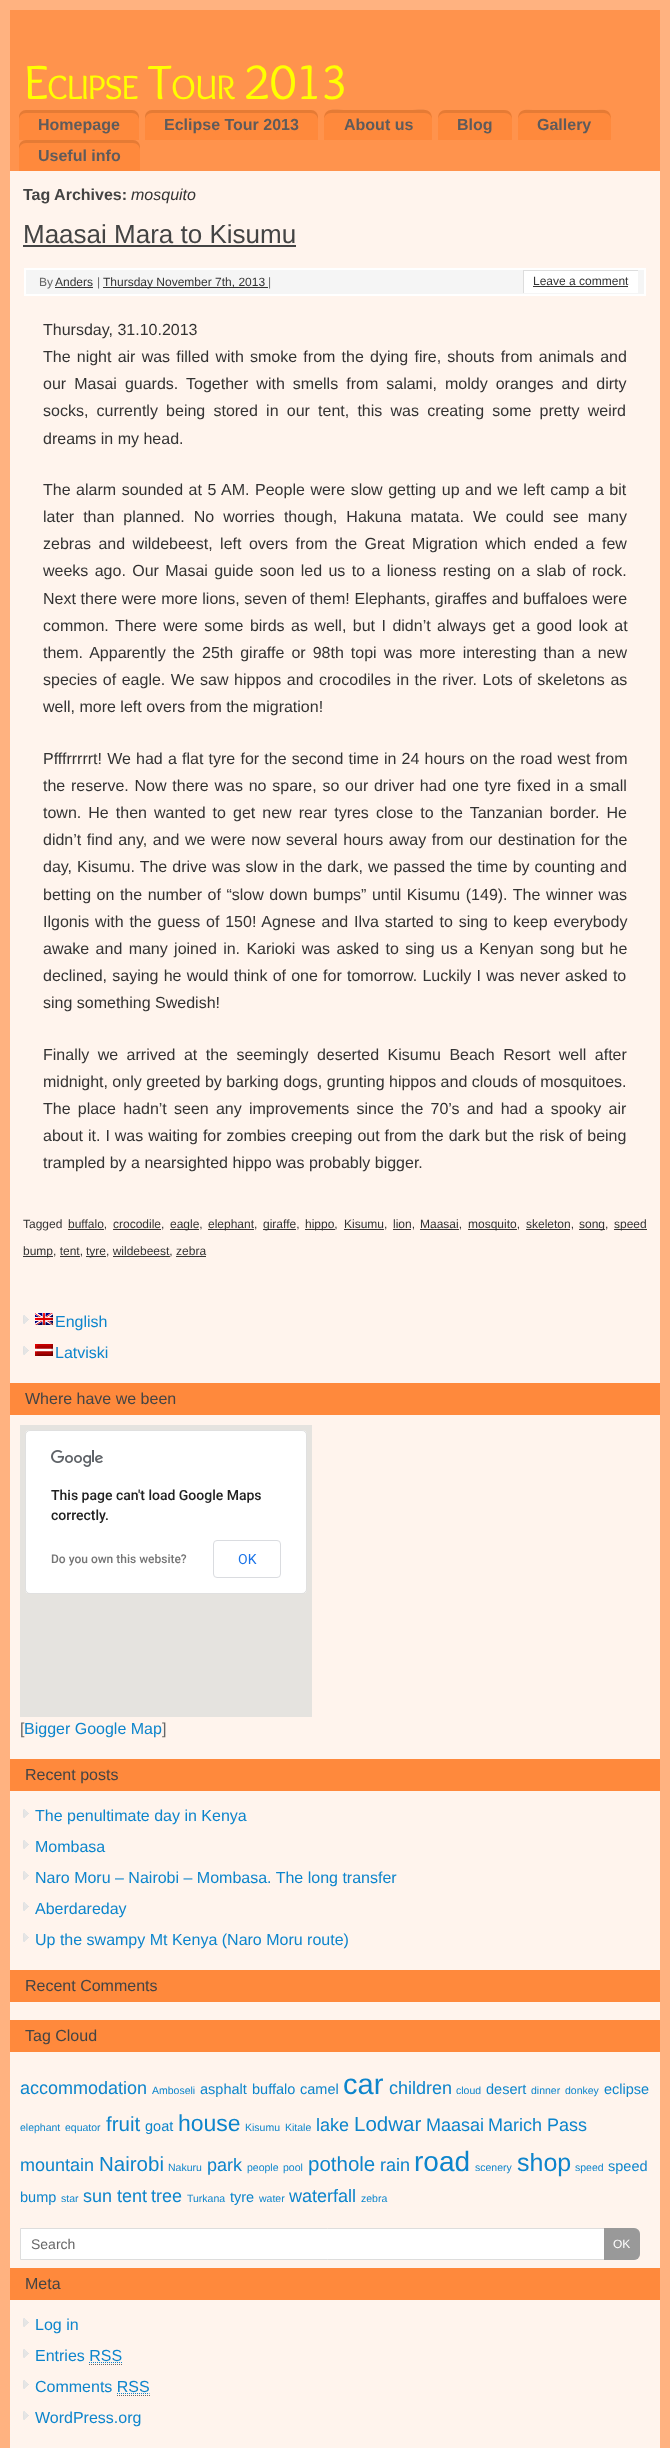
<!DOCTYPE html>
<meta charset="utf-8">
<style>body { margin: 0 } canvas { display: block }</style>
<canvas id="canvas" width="670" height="2448"></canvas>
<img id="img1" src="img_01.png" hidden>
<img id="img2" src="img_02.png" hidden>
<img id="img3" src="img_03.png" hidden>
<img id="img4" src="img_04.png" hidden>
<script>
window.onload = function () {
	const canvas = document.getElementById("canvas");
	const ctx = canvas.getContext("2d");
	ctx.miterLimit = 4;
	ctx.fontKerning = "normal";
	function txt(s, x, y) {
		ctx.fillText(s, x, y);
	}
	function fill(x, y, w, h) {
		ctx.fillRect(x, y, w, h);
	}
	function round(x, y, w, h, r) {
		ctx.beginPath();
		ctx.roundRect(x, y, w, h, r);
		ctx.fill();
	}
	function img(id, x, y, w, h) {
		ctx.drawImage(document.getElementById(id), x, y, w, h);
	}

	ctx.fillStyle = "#FFB280";
	fill(0, 0, 670, 2448);
	ctx.fillStyle = "#FF934D";
	fill(10, 10, 650, 161);
	ctx.fillStyle = "#FF893C";
	ctx.beginPath();
	ctx.roundRect(19, 110, 120, 30, [7, 7, 0, 0]);
	ctx.fill();
	ctx.fillStyle = "rgba(0, 0, 0, 0.1)";
	ctx.beginPath();
	ctx.moveTo(26, 113);
	ctx.lineTo(132, 113);
	ctx.bezierCurveTo(136, 113, 139, 116, 139, 120);
	ctx.lineTo(139, 117);
	ctx.bezierCurveTo(139, 113, 136, 110, 132, 110);
	ctx.lineTo(26, 110);
	ctx.bezierCurveTo(22, 110, 19, 113, 19, 117);
	ctx.lineTo(19, 120);
	ctx.bezierCurveTo(19, 116, 22, 113, 26, 113);
	ctx.closePath();
	ctx.fill();
	ctx.fillStyle = "#FF893C";
	ctx.beginPath();
	ctx.roundRect(145, 110, 173, 30, [7, 7, 0, 0]);
	ctx.fill();
	ctx.fillStyle = "rgba(0, 0, 0, 0.1)";
	ctx.beginPath();
	ctx.moveTo(152, 113);
	ctx.lineTo(311, 113);
	ctx.bezierCurveTo(315, 113, 318, 116, 318, 120);
	ctx.lineTo(318, 117);
	ctx.bezierCurveTo(318, 113, 315, 110, 311, 110);
	ctx.lineTo(152, 110);
	ctx.bezierCurveTo(148, 110, 145, 113, 145, 117);
	ctx.lineTo(145, 120);
	ctx.bezierCurveTo(145, 116, 148, 113, 152, 113);
	ctx.closePath();
	ctx.fill();
	ctx.fillStyle = "#FF893C";
	ctx.beginPath();
	ctx.roundRect(324, 110, 108, 30, [7, 7, 0, 0]);
	ctx.fill();
	ctx.fillStyle = "rgba(0, 0, 0, 0.1)";
	ctx.beginPath();
	ctx.moveTo(331, 113);
	ctx.lineTo(425, 113);
	ctx.bezierCurveTo(429, 113, 432, 116, 432, 120);
	ctx.bezierCurveTo(432, 106, 421, 110, 409, 110);
	ctx.lineTo(347, 110);
	ctx.bezierCurveTo(335, 110, 324, 106, 324, 120);
	ctx.bezierCurveTo(324, 116, 327, 113, 331, 113);
	ctx.closePath();
	ctx.fill();
	ctx.fillStyle = "#FF893C";
	ctx.beginPath();
	ctx.roundRect(438, 110, 74, 30, [7, 7, 0, 0]);
	ctx.fill();
	ctx.fillStyle = "rgba(0, 0, 0, 0.1)";
	ctx.beginPath();
	ctx.moveTo(445, 113);
	ctx.lineTo(505, 113);
	ctx.bezierCurveTo(509, 113, 512, 116, 512, 120);
	ctx.bezierCurveTo(512, 108, 505, 110, 495, 110);
	ctx.lineTo(455, 110);
	ctx.bezierCurveTo(445, 110, 438, 108, 438, 120);
	ctx.bezierCurveTo(438, 116, 441, 113, 445, 113);
	ctx.closePath();
	ctx.fill();
	ctx.fillStyle = "#FF893C";
	ctx.beginPath();
	ctx.roundRect(518, 110, 93, 30, [7, 7, 0, 0]);
	ctx.fill();
	ctx.fillStyle = "rgba(0, 0, 0, 0.1)";
	ctx.beginPath();
	ctx.moveTo(525, 113);
	ctx.lineTo(604, 113);
	ctx.bezierCurveTo(608, 113, 611, 116, 611, 120);
	ctx.bezierCurveTo(611, 107, 602, 110, 591, 110);
	ctx.lineTo(538, 110);
	ctx.bezierCurveTo(527, 110, 518, 107, 518, 120);
	ctx.bezierCurveTo(518, 116, 521, 113, 525, 113);
	ctx.closePath();
	ctx.fill();
	ctx.fillStyle = "#FF893C";
	ctx.beginPath();
	ctx.roundRect(19, 140, 121, 31, [7, 7, 0, 0]);
	ctx.fill();
	ctx.fillStyle = "rgba(0, 0, 0, 0.1)";
	ctx.beginPath();
	ctx.moveTo(26, 143);
	ctx.lineTo(133, 143);
	ctx.bezierCurveTo(137, 143, 140, 146, 140, 150);
	ctx.lineTo(140, 147);
	ctx.bezierCurveTo(140, 143, 137, 140, 133, 140);
	ctx.lineTo(26, 140);
	ctx.bezierCurveTo(22, 140, 19, 143, 19, 147);
	ctx.lineTo(19, 150);
	ctx.bezierCurveTo(19, 146, 22, 143, 26, 143);
	ctx.closePath();
	ctx.fill();
	ctx.fillStyle = "#FFF4ED";
	fill(10, 171, 650, 2277);
	ctx.fillStyle = "#444444";
	fill(23, 245, 273, 2);
	ctx.fillStyle = "#DDDDDD";
	ctx.filter = "blur(0.5px)";
	ctx.beginPath();
	ctx.rect(24, 268, 622, 28);
	ctx.fill();
	ctx.filter = "none";
	ctx.fillStyle = "#F5F5F5";
	ctx.beginPath();
	ctx.rect(25, 269, 620, 26);
	ctx.fill();
	ctx.strokeStyle = "#FFFFFF";
	ctx.lineWidth = 2;
	ctx.stroke();
	ctx.fillStyle = "#333333";
	fill(55, 287, 38, 1);
	fill(103, 287, 165, 1);
	ctx.fillStyle = "#FFFFFF";
	fill(524, 271, 114, 22);
	ctx.save();
	ctx.beginPath();
	ctx.rect(523, 270, 115, 23);
	ctx.clip();
	ctx.fillStyle = "#DDDDDD";
	ctx.beginPath();
	ctx.moveTo(424, 171);
	ctx.lineTo(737, 171);
	ctx.lineTo(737, 392);
	ctx.lineTo(424, 392);
	ctx.closePath();
	ctx.moveTo(524, 271);
	ctx.lineTo(639, 271);
	ctx.lineTo(639, 294);
	ctx.lineTo(524, 294);
	ctx.closePath();
	ctx.fill("evenodd");
	ctx.restore();
	ctx.fillStyle = "#333333";
	fill(533, 286, 95, 1);
	fill(68, 1229, 36, 1);
	fill(113, 1229, 48, 1);
	fill(170, 1229, 29, 1);
	fill(208, 1229, 46, 1);
	fill(263, 1229, 33, 1);
	fill(305, 1229, 30, 1);
	fill(344, 1229, 40, 1);
	fill(393, 1229, 18, 1);
	fill(420, 1229, 39, 1);
	fill(468, 1229, 49, 1);
	fill(526, 1229, 44, 1);
	fill(579, 1229, 26, 1);
	fill(614, 1229, 33, 1);
	fill(23, 1256, 30, 1);
	fill(60, 1256, 20, 1);
	fill(86, 1256, 20, 1);
	fill(113, 1256, 57, 1);
	fill(176, 1256, 30, 1);
	img("img1", 23, 1315, 6, 9);
	img("img2", 35, 1313, 18, 12);
	img("img1", 23, 1346, 6, 9);
	img("img3", 35, 1344, 18, 12);
	ctx.fillStyle = "#FF893C";
	fill(10, 1383, 650, 32);
	ctx.fillStyle = "#E5E3DF";
	fill(20, 1425, 292, 292);
	ctx.fillStyle = "#FFFFFF";
	round(25, 1430, 282, 164, 5);
	ctx.beginPath();
	ctx.roundRect(25.5, 1430.5, 281, 163, 4.5);
	ctx.strokeStyle = "rgba(0, 0, 0, 0.12)";
	ctx.lineWidth = 1;
	ctx.stroke();
	img("img4", 51, 1450, 52, 17);
	ctx.beginPath();
	ctx.roundRect(213.5, 1540.5, 67, 37, 3.5);
	ctx.strokeStyle = "#DADCE0";
	ctx.stroke();
	ctx.fillStyle = "#FF893C";
	fill(10, 1759, 650, 32);
	img("img1", 23, 1809, 6, 9);
	img("img1", 23, 1840, 6, 9);
	img("img1", 23, 1871, 6, 9);
	img("img1", 23, 1902, 6, 9);
	img("img1", 23, 1933, 6, 9);
	fill(10, 1970, 650, 32);
	fill(10, 2020, 650, 32);
	ctx.fillStyle = "#FFFFFF";
	ctx.beginPath();
	ctx.roundRect(20.5, 2228.5, 619, 31, [0, 5.5, 5.5, 0]);
	ctx.fill();
	ctx.strokeStyle = "#DDDDDD";
	ctx.stroke();
	ctx.fillStyle = "#999999";
	ctx.beginPath();
	ctx.roundRect(604, 2228, 36, 32, [0, 6, 6, 0]);
	ctx.fill();
	ctx.fillStyle = "#FF893C";
	fill(10, 2268, 650, 32);
	img("img1", 23, 2318, 6, 9);
	img("img1", 23, 2349, 6, 9);
	ctx.beginPath();
	ctx.moveTo(89, 2364.5);
	ctx.lineTo(122, 2364.5);
	ctx.strokeStyle = "#666666";
	ctx.setLineDash([1, 1]);
	ctx.stroke();
	ctx.beginPath();
	ctx.moveTo(89, 2362.5);
	ctx.lineTo(122, 2362.5);
	ctx.strokeStyle = "#0D85CC";
	ctx.stroke();
	img("img1", 23, 2380, 6, 9);
	ctx.beginPath();
	ctx.moveTo(117, 2395.5);
	ctx.lineTo(150, 2395.5);
	ctx.strokeStyle = "#666666";
	ctx.stroke();
	ctx.beginPath();
	ctx.moveTo(117, 2393.5);
	ctx.lineTo(149.5, 2393.5);
	ctx.strokeStyle = "#0D85CC";
	ctx.stroke();
	img("img1", 23, 2411, 6, 9);
	ctx.letterSpacing = "-1px";
	ctx.font = "50px Overlock";
	ctx.fillStyle = "#FFFF00";
	txt("E", 24, 99);
	ctx.font = "35px Overlock";
	txt("CLIPSE", 47, 99);
	ctx.font = "50px Overlock";
	txt("T", 148, 99);
	ctx.font = "35px Overlock";
	txt("OUR", 171, 99);
	ctx.font = "50px Overlock";
	txt("2013", 244, 99);
	ctx.letterSpacing = "0px";
	ctx.font = "bold 16px Liberation Sans";
	ctx.fillStyle = "#5F5B5B";
	txt("Homepage", 38, 130);
	txt("Eclipse Tour 2013", 164, 130);
	txt("About us", 344, 130);
	txt("Blog", 457, 130);
	txt("Gallery", 537, 130);
	txt("Useful info", 38, 161);
	ctx.fillStyle = "#444444";
	txt("Tag Archives:", 23, 200);
	ctx.font = "italic 16px Liberation Sans";
	ctx.fillStyle = "#333333";
	txt("mosquito", 131, 200);
	ctx.font = "26px Liberation Sans";
	ctx.fillStyle = "#444444";
	txt("Maasai Mara to Kisumu", 23, 243);
	ctx.font = "12px Liberation Sans";
	ctx.fillStyle = "#666666";
	txt("By", 39, 286);
	ctx.fillStyle = "#333333";
	txt("Anders", 55, 286);
	ctx.fillStyle = "#666666";
	txt("|", 97, 286);
	ctx.fillStyle = "#333333";
	txt("Thursday November 7th, 2013", 103, 286);
	ctx.fillStyle = "#666666";
	txt("|", 268, 286);
	ctx.fillStyle = "#333333";
	txt("Leave a comment", 533, 285);
	ctx.font = "16px Liberation Sans";
	txt("Thursday, 31.10.2013", 43, 335);
	ctx.wordSpacing = "1.75px";
	txt("The night air was filled with smoke from the dying fire, shouts from animals and", 43, 362);
	ctx.wordSpacing = "3.6px";
	txt("our Masai guards. Together with smells from salami, moldy oranges and dirty", 43, 389);
	ctx.wordSpacing = "3.75px";
	txt("socks, currently being stored in our tent, this was creating some pretty weird", 43, 416);
	ctx.wordSpacing = "0px";
	txt("dreams in my head.", 43, 444);
	ctx.wordSpacing = "1.1px";
	txt("The alarm sounded at 5 AM. People were slow getting up and we left camp a bit", 43, 495);
	ctx.wordSpacing = "4.6px";
	txt("later than planned. No worries though, Hakuna matata. We could see many", 43, 522);
	ctx.wordSpacing = "3px";
	txt("zebras and wildebeest, left overs from the Great Migration which ended a few", 43, 549);
	ctx.wordSpacing = "1.9px";
	txt("weeks ago. Our Masai guide soon led us to a lioness resting on a slab of rock.", 43, 576);
	ctx.wordSpacing = "0.25px";
	txt("Next there were more lions, seven of them! Elephants, giraffes and buffaloes were", 43, 604);
	ctx.wordSpacing = "2px";
	txt("common. There were some birds as well, but I didn’t always get a good look at", 43, 631);
	ctx.wordSpacing = "2.6px";
	txt("them. Apparently the 25th giraffe or 98th topi was more interesting than a new", 43, 658);
	ctx.wordSpacing = "1.1px";
	txt("species of eagle. We saw hippos and crocodiles in the river. Lots of skeletons as", 43, 685);
	ctx.wordSpacing = "0px";
	txt("well, more left overs from the migration!", 43, 712);
	ctx.wordSpacing = "0.75px";
	txt("Pfffrrrrrt! We had a flat tyre for the second time in 24 hours on the road west from", 43, 764);
	ctx.wordSpacing = "1.3px";
	txt("the reserve. Now there was no spare, so our driver had one tyre fixed in a small", 43, 791);
	ctx.wordSpacing = "2.6px";
	txt("town. He then wanted to get new rear tyres close to the Tanzanian border. He", 43, 818);
	ctx.wordSpacing = "1.1px";
	txt("didn’t find any, and we were now several hours away from our destination for the", 43, 845);
	ctx.wordSpacing = "0.6px";
	txt("day, Kisumu. The drive was slow in the dark, we passed the time by counting and", 43, 872);
	ctx.wordSpacing = "1.1px";
	txt("betting on the number of “slow down bumps” until Kisumu (149). The winner was", 43, 900);
	ctx.wordSpacing = "1.4px";
	txt("Ilgonis with the guess of 150! Agnese and Ilva started to sing to keep everybody", 43, 927);
	ctx.wordSpacing = "1.9px";
	txt("awake and many joined in. Karioki was asked to sing us a Kenyan song but he", 43, 954);
	ctx.wordSpacing = "0.75px";
	txt("declined, saying he would think of one for tomorrow. Luckily I was never asked to", 43, 981);
	ctx.wordSpacing = "0px";
	txt("sing something Swedish!", 43, 1008);
	ctx.wordSpacing = "4px";
	txt("Finally we arrived at the seemingly deserted Kisumu Beach Resort well after", 43, 1060);
	ctx.wordSpacing = "0px";
	txt("midnight, only greeted by barking dogs, grunting hippos and clouds of mosquitoes.", 43, 1087);
	ctx.wordSpacing = "2.75px";
	txt("The place hadn’t seen any improvements since the 70’s and had a spooky air", 43, 1114);
	ctx.wordSpacing = "0.5px";
	txt("about it. I was waiting for zombies creeping out from the dark but the risk of being", 43, 1141);
	ctx.wordSpacing = "0px";
	txt("trampled by a nearsighted hippo was probably bigger.", 43, 1168);
	ctx.font = "12px Liberation Sans";
	txt("Tagged", 23, 1228);
	txt("buffalo,", 68, 1228);
	txt("crocodile,", 113, 1228);
	txt("eagle,", 170, 1228);
	txt("elephant,", 208, 1228);
	txt("giraffe,", 263, 1228);
	txt("hippo,", 305, 1228);
	txt("Kisumu,", 344, 1228);
	txt("lion,", 393, 1228);
	txt("Maasai,", 420, 1228);
	txt("mosquito,", 468, 1228);
	txt("skeleton,", 526, 1228);
	txt("song,", 579, 1228);
	txt("speed", 614, 1228);
	txt("bump, tent,", 23, 1255);
	txt("tyre, wildebeest, zebra", 86, 1255);
	ctx.font = "16px Liberation Sans";
	ctx.fillStyle = "#0D85CC";
	txt("English", 55, 1327);
	txt("Latviski", 55, 1358);
	ctx.fillStyle = "#444444";
	txt("Where have we been", 25, 1404);
	ctx.font = "500 14px Roboto";
	ctx.fillStyle = "#212121";
	txt("This page can't load Google Maps", 51, 1500);
	txt("correctly.", 51, 1520);
	ctx.font = "500 12px Roboto";
	ctx.fillStyle = "#757575";
	txt("Do you own this website?", 51, 1563);
	ctx.font = "14px Roboto";
	ctx.fillStyle = "#1A73E8";
	txt("OK", 238, 1564);
	ctx.font = "16px Liberation Sans";
	ctx.fillStyle = "#666666";
	txt("[", 20, 1734);
	ctx.fillStyle = "#0D85CC";
	txt("Bigger Google Map", 24, 1734);
	ctx.fillStyle = "#666666";
	txt("]", 162, 1734);
	ctx.fillStyle = "#444444";
	txt("Recent posts", 25, 1780);
	ctx.fillStyle = "#0D85CC";
	txt("The penultimate day in Kenya", 35, 1821);
	txt("Mombasa", 35, 1852);
	txt("Naro Moru – Nairobi – Mombasa. The long transfer", 35, 1883);
	txt("Aberdareday", 35, 1914);
	txt("Up the swampy Mt Kenya (Naro Moru route)", 35, 1945);
	ctx.fillStyle = "#444444";
	txt("Recent Comments", 25, 1991);
	txt("Tag Cloud", 25, 2041);
	ctx.font = "18px Liberation Sans";
	ctx.fillStyle = "#0D85CC";
	txt("accommodation", 20, 2094);
	ctx.font = "10.5px Liberation Sans";
	txt("Amboseli", 152, 2094);
	ctx.font = "14.5px Liberation Sans";
	txt("asphalt", 200, 2094);
	txt("buffalo", 252, 2094);
	txt("camel", 300, 2094);
	ctx.font = "29px Liberation Sans";
	txt("car", 343, 2094);
	ctx.font = "18px Liberation Sans";
	txt("children", 389, 2094);
	ctx.font = "10.5px Liberation Sans";
	txt("cloud", 456, 2094);
	ctx.font = "14.5px Liberation Sans";
	txt("desert", 486, 2094);
	ctx.font = "10.5px Liberation Sans";
	txt("dinner", 531, 2094);
	txt("donkey", 565, 2094);
	ctx.font = "14.5px Liberation Sans";
	txt("eclipse", 604, 2094);
	ctx.font = "10.5px Liberation Sans";
	txt("elephant", 20, 2131);
	txt("equator", 65, 2131);
	ctx.font = "20.5px Liberation Sans";
	txt("fruit", 106, 2131);
	ctx.font = "14.5px Liberation Sans";
	txt("goat", 145, 2131);
	ctx.font = "23px Liberation Sans";
	txt("house", 178, 2131);
	ctx.font = "10.5px Liberation Sans";
	txt("Kisumu", 245, 2131);
	txt("Kitale", 285, 2131);
	ctx.font = "18px Liberation Sans";
	txt("lake", 316, 2131);
	ctx.font = "20.5px Liberation Sans";
	txt("Lodwar", 354, 2131);
	ctx.font = "18px Liberation Sans";
	txt("Maasai", 426, 2131);
	txt("Marich Pass", 488, 2131);
	txt("mountain", 20, 2171);
	ctx.font = "20.5px Liberation Sans";
	txt("Nairobi", 99, 2171);
	ctx.font = "10.5px Liberation Sans";
	txt("Nakuru", 168, 2171);
	ctx.font = "18px Liberation Sans";
	txt("park", 207, 2171);
	ctx.font = "10.5px Liberation Sans";
	txt("people", 247, 2171);
	txt("pool", 283, 2171);
	ctx.font = "20.5px Liberation Sans";
	txt("pothole", 308, 2171);
	ctx.font = "18px Liberation Sans";
	txt("rain", 380, 2171);
	ctx.font = "28px Liberation Sans";
	txt("road", 414, 2171);
	ctx.font = "10.5px Liberation Sans";
	txt("scenery", 475, 2171);
	ctx.font = "25px Liberation Sans";
	txt("shop", 517, 2171);
	ctx.font = "10.5px Liberation Sans";
	txt("speed", 575, 2171);
	ctx.font = "14.5px Liberation Sans";
	txt("speed", 608, 2171);
	txt("bump", 20, 2202);
	ctx.font = "10.5px Liberation Sans";
	txt("star", 61, 2202);
	ctx.font = "18px Liberation Sans";
	txt("sun", 83, 2202);
	txt("tent", 117, 2202);
	txt("tree", 151, 2202);
	ctx.font = "10.5px Liberation Sans";
	txt("Turkana", 187, 2202);
	ctx.font = "14.5px Liberation Sans";
	txt("tyre", 230, 2202);
	ctx.font = "10.5px Liberation Sans";
	txt("water", 259, 2202);
	ctx.font = "18px Liberation Sans";
	txt("waterfall", 289, 2202);
	ctx.font = "10.5px Liberation Sans";
	txt("zebra", 361, 2202);
	ctx.font = "14px Liberation Sans";
	ctx.fillStyle = "#666666";
	txt("Search", 31, 2249);
	ctx.font = "12px Liberation Sans";
	ctx.fillStyle = "#FFFFFF";
	txt("OK", 613, 2248);
	ctx.font = "16px Liberation Sans";
	ctx.fillStyle = "#444444";
	txt("Meta", 25, 2289);
	ctx.fillStyle = "#0D85CC";
	txt("Log in", 35, 2330);
	txt("Entries RSS", 35, 2361);
	txt("Comments RSS", 35, 2392);
	txt("WordPress.org", 35, 2423);
};
</script>
